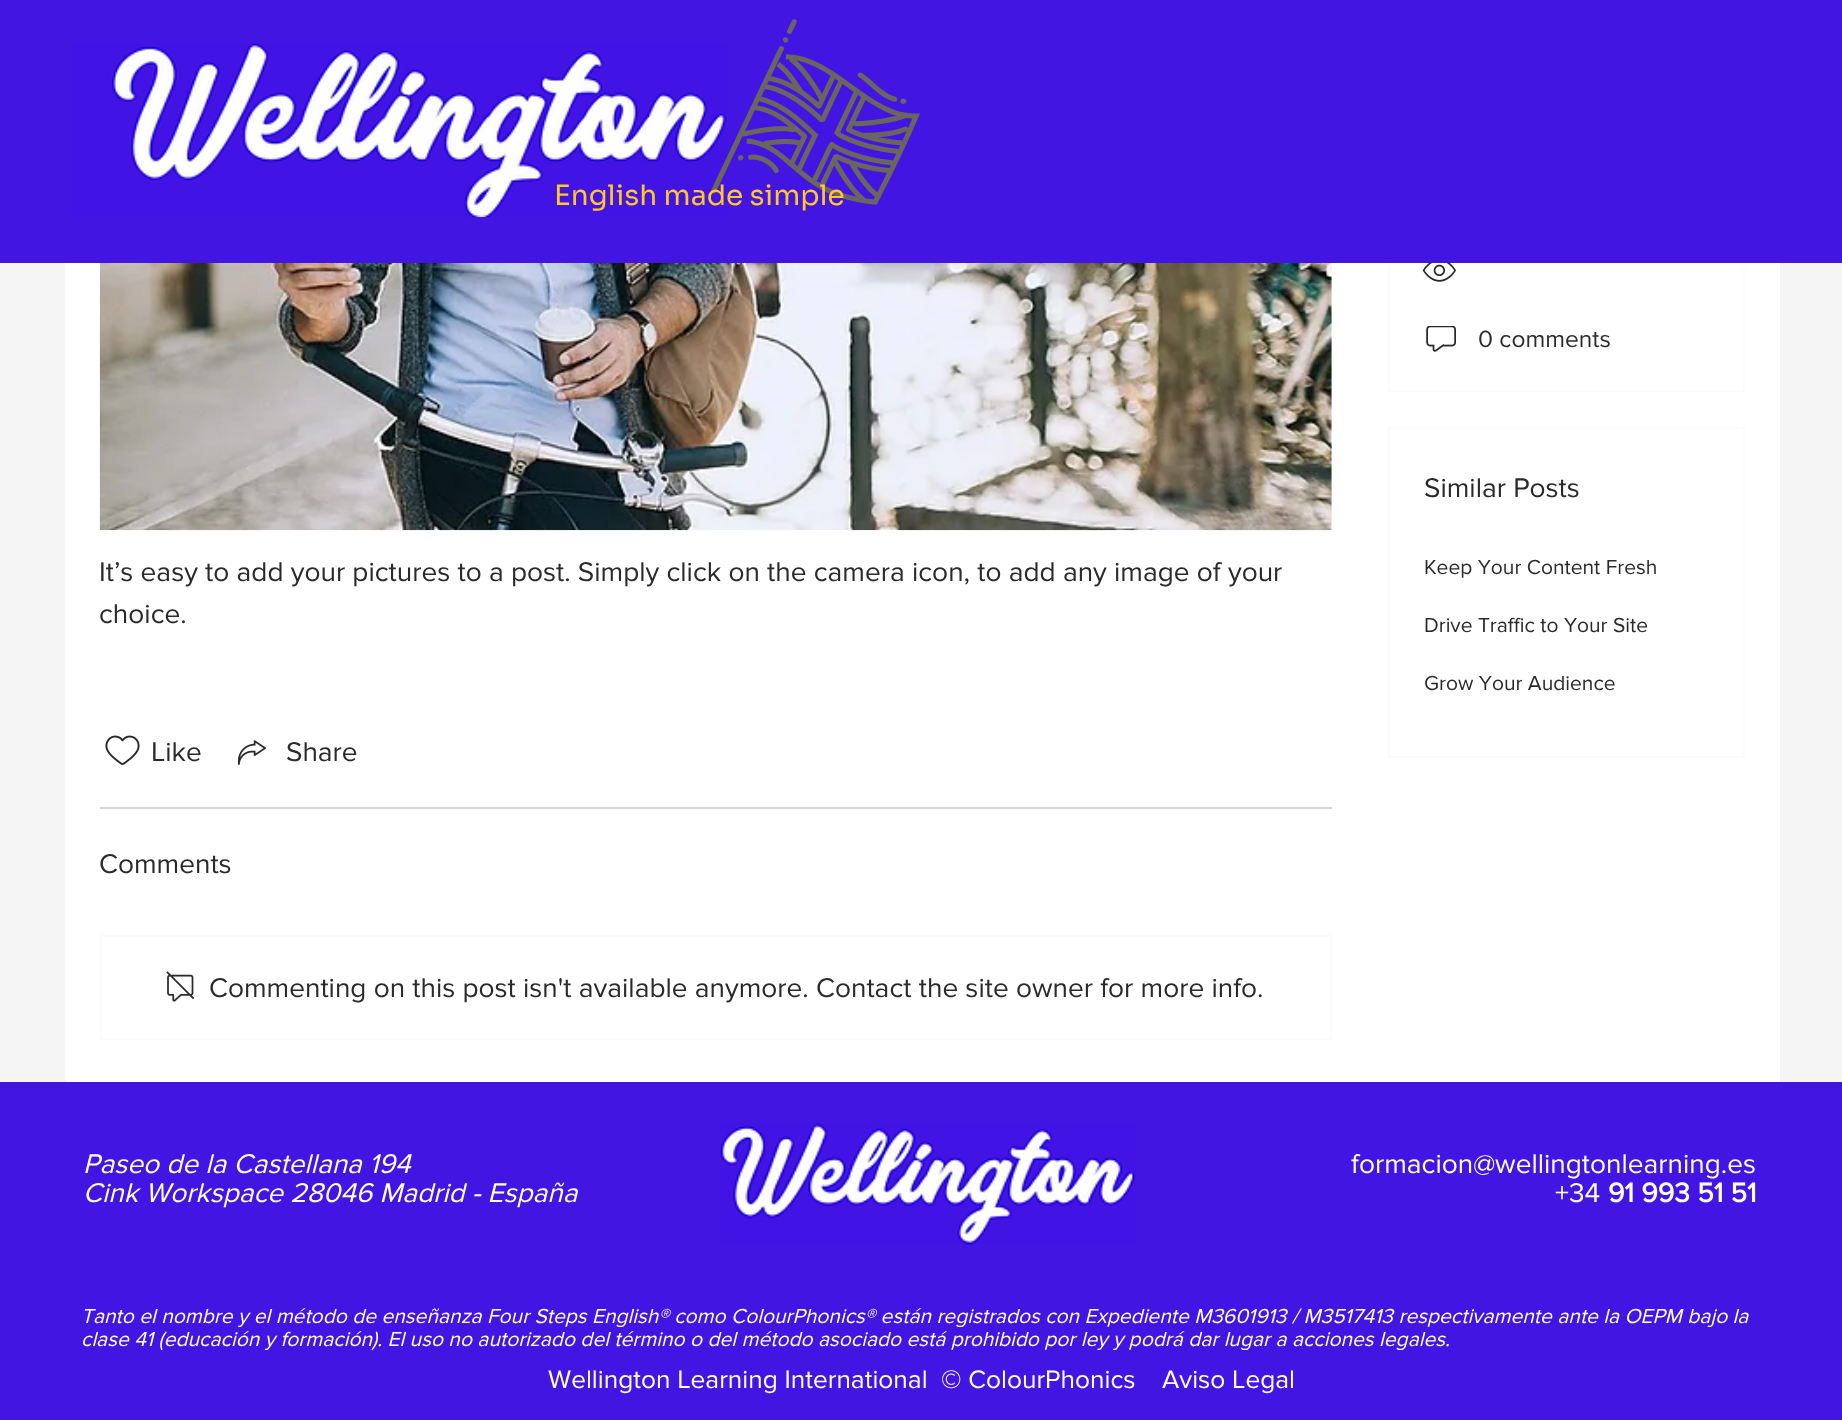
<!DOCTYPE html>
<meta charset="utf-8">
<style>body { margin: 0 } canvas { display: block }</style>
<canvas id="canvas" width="1842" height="1420"></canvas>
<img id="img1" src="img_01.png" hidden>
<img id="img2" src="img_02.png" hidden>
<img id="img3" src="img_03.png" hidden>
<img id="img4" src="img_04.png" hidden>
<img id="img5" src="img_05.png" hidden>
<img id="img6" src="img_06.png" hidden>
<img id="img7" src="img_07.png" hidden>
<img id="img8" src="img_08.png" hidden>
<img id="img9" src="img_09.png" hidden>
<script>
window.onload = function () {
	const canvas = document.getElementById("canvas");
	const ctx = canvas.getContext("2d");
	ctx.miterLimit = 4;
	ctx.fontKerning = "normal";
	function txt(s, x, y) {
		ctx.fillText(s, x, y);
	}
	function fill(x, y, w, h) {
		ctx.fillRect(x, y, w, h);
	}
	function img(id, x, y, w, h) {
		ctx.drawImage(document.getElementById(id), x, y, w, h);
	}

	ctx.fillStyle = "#F5F5F5";
	fill(0, 0, 1842, 1420);
	ctx.fillStyle = "#FFFFFF";
	fill(65, 263, 1715, 819);
	ctx.strokeStyle = "#FBFBFB";
	ctx.lineWidth = 2;
	ctx.strokeRect(1389, 218, 355, 173);
	ctx.fillStyle = "#4215E3";
	fill(0, 0, 1842, 263);
	img("img1", 73, 43, 654, 174);
	img("img2", 711, 19, 209, 186);
	img("img3", 1422, 263, 34, 19);
	img("img4", 1426, 326, 30, 26);
	ctx.strokeRect(1389, 428, 355, 329);
	img("img5", 99, 263, 1233, 268);
	img("img6", 105, 735, 35, 30);
	img("img7", 238, 740, 28, 25);
	ctx.fillStyle = "#D4D4D4";
	fill(100, 807, 1232, 2);
	ctx.strokeRect(101, 936, 1230, 103);
	img("img8", 166, 971, 28, 31);
	ctx.fillStyle = "#4215E3";
	fill(0, 1082, 1842, 338);
	img("img9", 720, 1123, 416, 122);
	ctx.font = "28px Sora";
	ctx.fillStyle = "#FFC824";
	txt("English made simple", 554, 205);
	ctx.font = "24.5px 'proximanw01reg'";
	ctx.fillStyle = "#2A2A2A";
	txt("0 comments", 1478, 347);
	ctx.font = "28px 'proximanw01reg'";
	txt("Similar Posts", 1424, 497);
	ctx.font = "21px 'proximanw01reg'";
	txt("Keep Your Content Fresh", 1424, 574);
	txt("Drive Traffic to Your Site", 1424, 632);
	ctx.save();
	ctx.beginPath();
	ctx.rect(1425, 663, 283, 37);
	ctx.clip();
	txt("Grow Your Audience", 1424, 690);
	ctx.restore();
	ctx.font = "28px 'proximanw01reg'";
	txt("It’s easy to add your pictures to a post. Simply click on the camera icon, to add any image of your", 99, 581);
	txt("choice.", 99, 623);
	txt("Like", 151, 761);
	txt("Share", 286, 761);
	txt("Comments", 99, 873);
	txt("Commenting on this post isn't available anymore. Contact the site owner for more info.", 209, 997);
	ctx.font = "italic 28px 'proximanw01reg'";
	ctx.fillStyle = "#FFFFFF";
	txt("Paseo de la Castellana 194", 83, 1173);
	txt("Cink Workspace 28046 Madrid - España", 83, 1202);
	ctx.font = "28px 'proximanw01reg'";
	txt("formacion@wellingtonlearning.es", 1351, 1173);
	txt("+34", 1555, 1202);
	ctx.font = "bold 28px 'proximanw01reg'";
	txt("91 993 51 51", 1608, 1202);
	ctx.font = "italic 21px 'proximanw01reg'";
	txt("Tanto el nombre y el método de enseñanza Four Steps English® como ColourPhonics® están registrados con Expediente M3601913 / M3517413 respectivamente ante la OEPM bajo la", 81, 1323);
	txt("clase 41 (educación y formación). El uso no autorizado del término o del método asociado está prohibido por ley y podrá dar lugar a acciones legales.", 81, 1346);
	ctx.font = "26.25px 'proximanw01reg'";
	txt("Wellington Learning International  © ColourPhonics", 548, 1388);
	txt("Aviso Legal", 1162, 1388);
};
</script>
